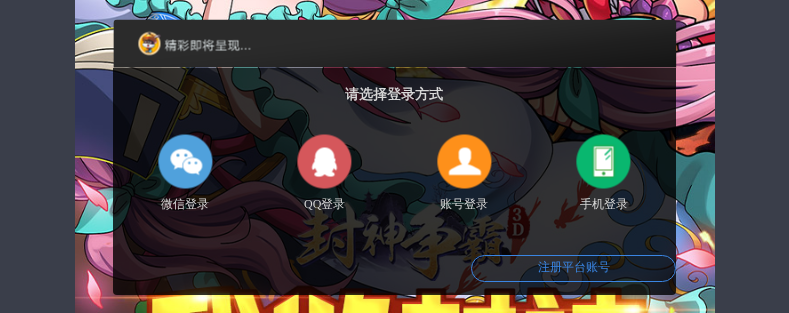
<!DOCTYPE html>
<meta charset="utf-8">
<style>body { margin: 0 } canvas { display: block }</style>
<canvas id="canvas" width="789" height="313"></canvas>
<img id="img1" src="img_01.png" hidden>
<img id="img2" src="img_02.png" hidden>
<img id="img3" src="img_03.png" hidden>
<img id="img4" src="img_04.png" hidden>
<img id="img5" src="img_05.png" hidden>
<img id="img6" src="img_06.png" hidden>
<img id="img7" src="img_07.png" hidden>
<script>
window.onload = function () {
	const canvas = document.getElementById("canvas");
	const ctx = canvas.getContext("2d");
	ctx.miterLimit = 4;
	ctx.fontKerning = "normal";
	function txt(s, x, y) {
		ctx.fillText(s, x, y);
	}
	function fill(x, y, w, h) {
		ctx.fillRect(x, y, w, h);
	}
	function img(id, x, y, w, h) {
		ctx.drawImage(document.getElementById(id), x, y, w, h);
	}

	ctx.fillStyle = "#3A3E4A";
	fill(0, 0, 789, 313);
	img("img1", 75, 0, 640, 313);
	img("img2", 113, 19, 564, 49);
	img("img3", 138, 31, 113, 25);
	ctx.fillStyle = "rgba(0, 0, 0, 0.8)";
	ctx.beginPath();
	ctx.roundRect(113, 68, 563, 227, [0, 0, 4, 4]);
	ctx.fill();
	img("img4", 158, 134, 55, 55);
	img("img5", 297, 134, 55, 55);
	img("img6", 437, 134, 55, 55);
	img("img7", 576, 134, 55, 55);
	ctx.beginPath();
	ctx.roundRect(471.5, 255.5, 204, 26, 13);
	ctx.strokeStyle = "#3A85E2";
	ctx.stroke();
	ctx.font = "bold 14px WenQuanYi Zen Hei";
	ctx.fillStyle = "#D7D7D7";
	txt("请选择登录方式", 345, 99);
	ctx.font = "500 12px WenQuanYi Zen Hei";
	txt("微信登录", 161, 208);
	ctx.font = "12px Liberation Serif";
	txt("QQ", 304, 208);
	ctx.font = "500 12px WenQuanYi Zen Hei";
	txt("登录", 321, 208);
	txt("账号登录", 440, 208);
	txt("手机登录", 580, 208);
	ctx.fillStyle = "#3A85E2";
	txt("注册平台账号", 538, 271);
};
</script>
